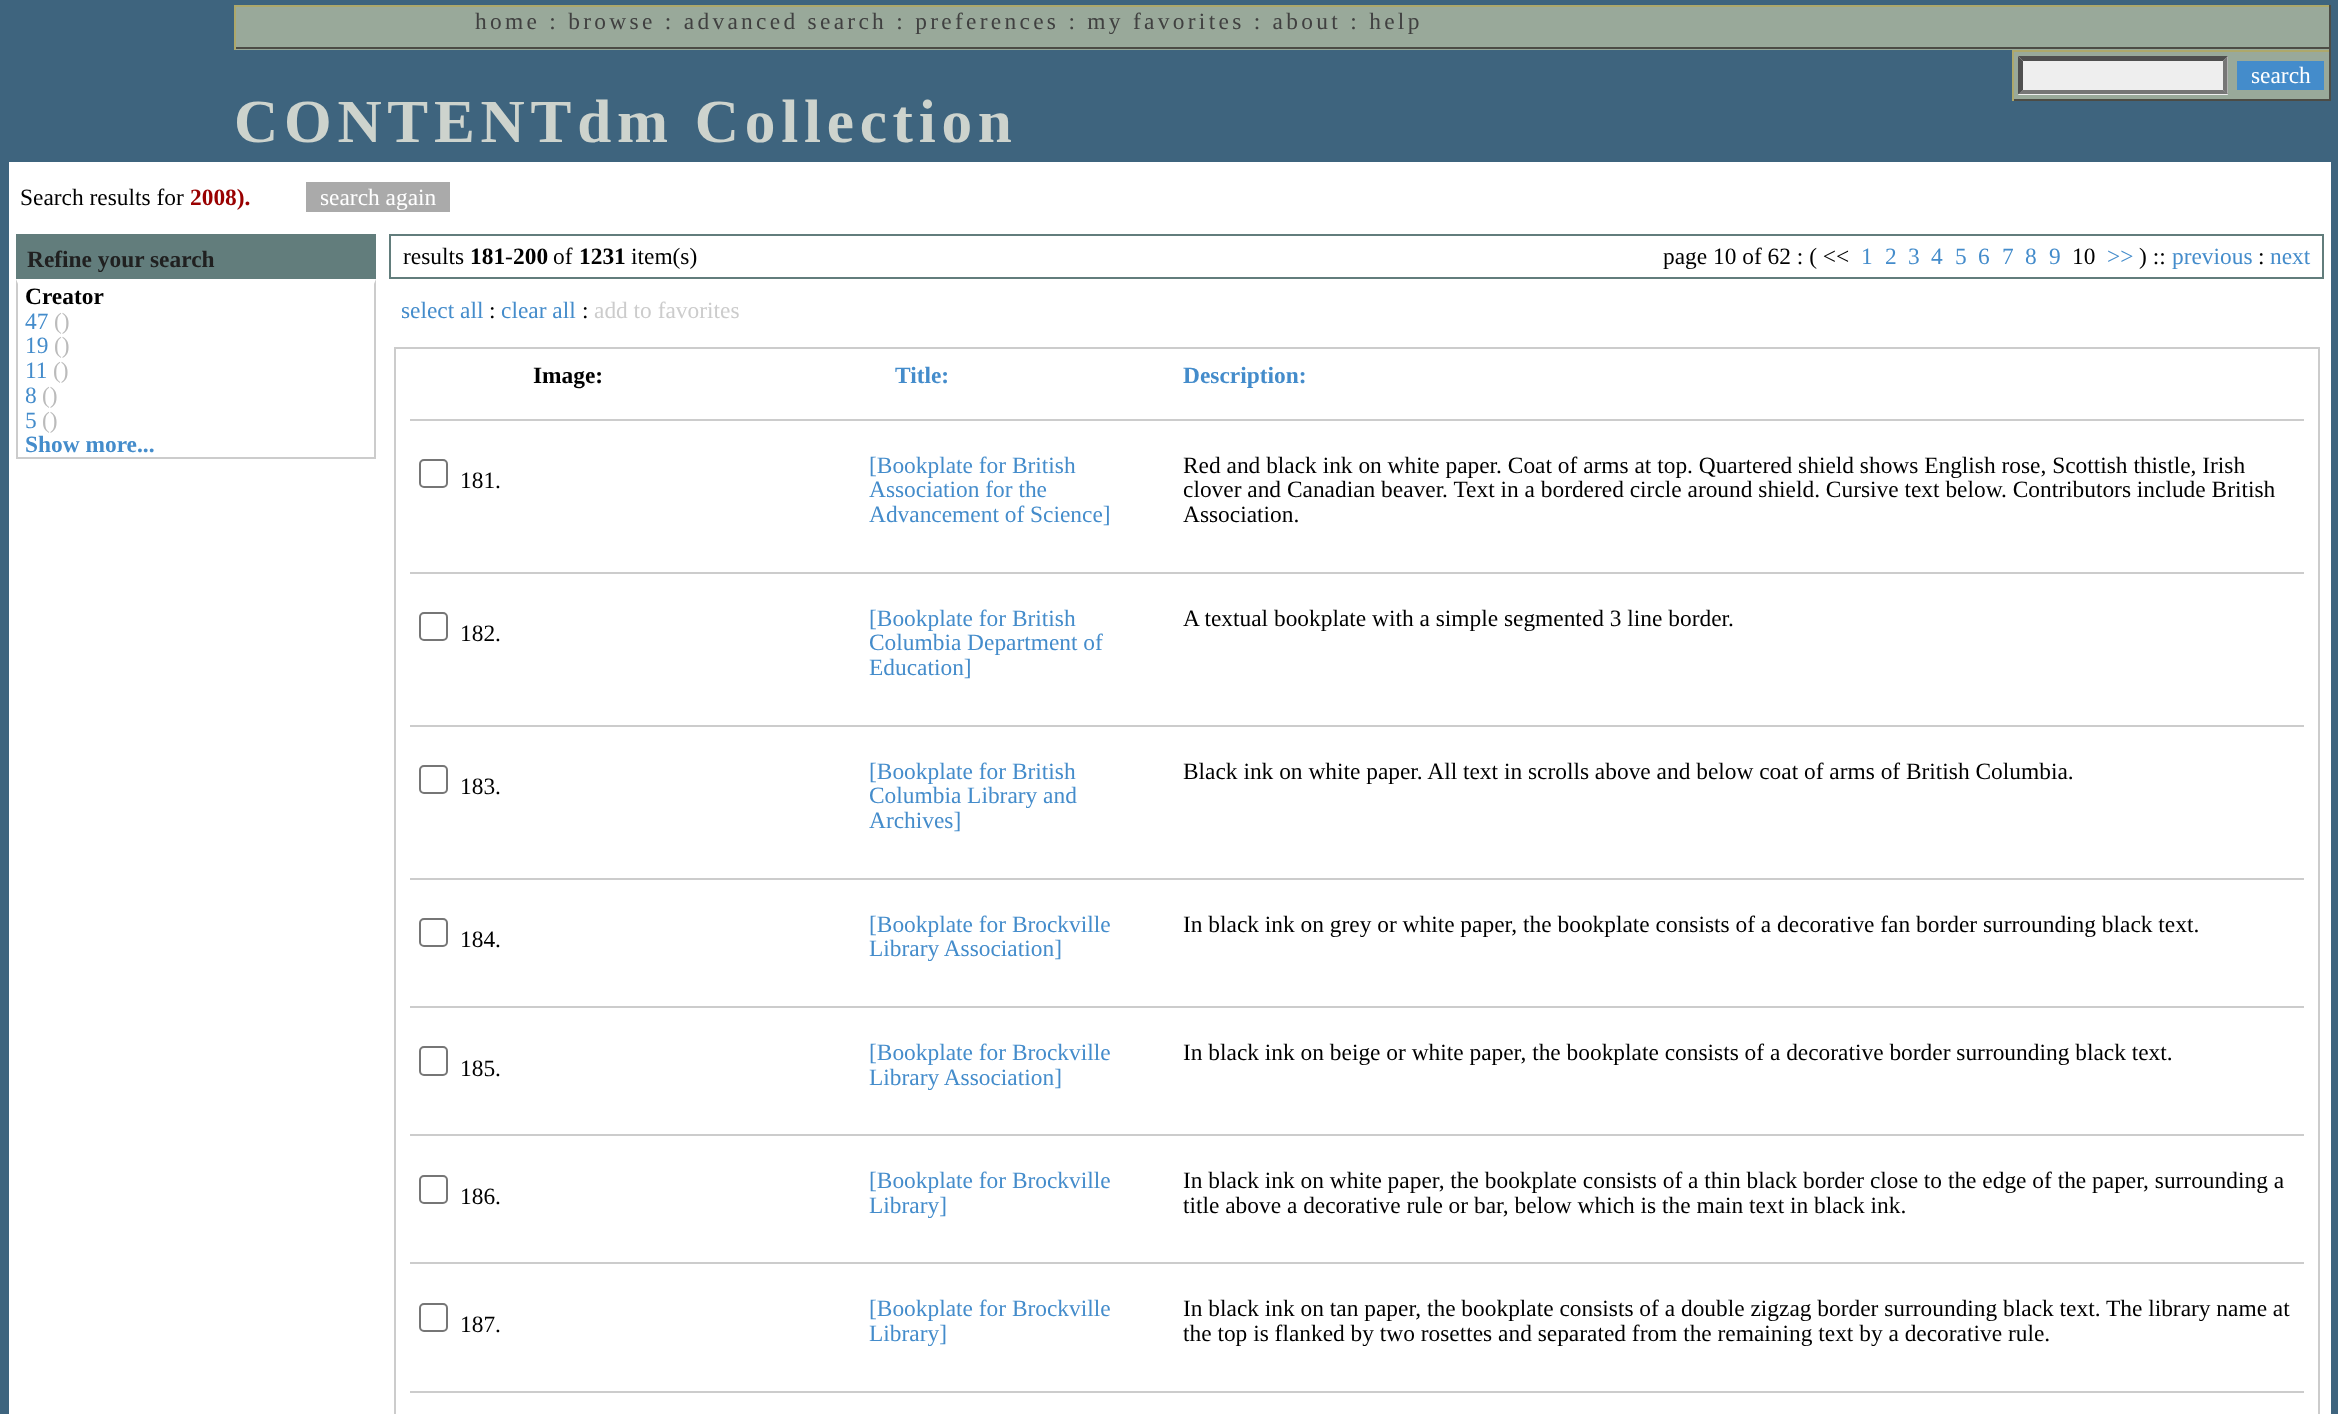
<!DOCTYPE html>
<meta charset="utf-8">
<style>body { margin: 0 } canvas { display: block }</style>
<canvas id="canvas" width="2338" height="1414"></canvas>
<script>
window.onload = function () {
	const canvas = document.getElementById("canvas");
	const ctx = canvas.getContext("2d");
	ctx.miterLimit = 4;
	ctx.fontKerning = "normal";
	function txt(s, x, y) {
		ctx.fillText(s, x, y);
	}
	function fill(x, y, w, h) {
		ctx.fillRect(x, y, w, h);
	}

	ctx.fillStyle = "#FFFFFF";
	fill(0, 0, 2338, 1414);
	ctx.fillStyle = "#3E647E";
	fill(0, 0, 9, 1414);
	fill(9, 0, 2322, 162);
	ctx.fillStyle = "#99A99A";
	fill(236, 7, 2093, 43);
	ctx.fillStyle = "#ADA86B";
	fill(234, 5, 2097, 2);
	ctx.fillStyle = "#4C4C45";
	fill(234, 47, 2070, 2);
	ctx.fillStyle = "#ADA86B";
	fill(234, 5, 2, 45);
	ctx.fillStyle = "#4C4C45";
	fill(2329, 5, 2, 45);
	fill(2304, 47, 27, 2);
	ctx.fillStyle = "#99A99A";
	fill(2014, 52, 315, 47);
	ctx.fillStyle = "#ADA86B";
	fill(2012, 50, 319, 2);
	ctx.fillStyle = "#4C4C45";
	fill(2012, 99, 220, 2);
	ctx.fillStyle = "#ADA86B";
	fill(2012, 50, 2, 51);
	ctx.fillStyle = "#EEEEEE";
	fill(2018, 56, 210, 39);
	ctx.fillStyle = "#4F4F4F";
	ctx.beginPath();
	ctx.moveTo(2018, 56);
	ctx.lineTo(2228, 56);
	ctx.lineTo(2223, 61);
	ctx.lineTo(2023, 61);
	ctx.closePath();
	ctx.fill();
	ctx.fillStyle = "#767676";
	ctx.beginPath();
	ctx.moveTo(2227.5, 56);
	ctx.lineTo(2227.5, 94.5);
	ctx.lineTo(2223, 90);
	ctx.lineTo(2223, 61);
	ctx.closePath();
	ctx.fill();
	ctx.beginPath();
	ctx.moveTo(2228, 94);
	ctx.lineTo(2018, 94);
	ctx.lineTo(2023, 90);
	ctx.lineTo(2223, 90);
	ctx.closePath();
	ctx.fill();
	ctx.fillStyle = "#4F4F4F";
	ctx.beginPath();
	ctx.moveTo(2018, 94.5);
	ctx.lineTo(2018, 56);
	ctx.lineTo(2023, 61);
	ctx.lineTo(2023, 90);
	ctx.closePath();
	ctx.fill();
	ctx.fillStyle = "#4C4C45";
	fill(2329, 50, 2, 51);
	fill(2232, 99, 99, 2);
	ctx.fillStyle = "#448CCB";
	fill(2237, 61, 87, 29);
	ctx.fillStyle = "#3E647E";
	fill(2331, 0, 7, 1414);
	ctx.fillStyle = "#AAAAAA";
	fill(306, 182, 144, 30);
	ctx.fillStyle = "#627D7C";
	fill(16, 234, 360, 45);
	ctx.fillStyle = "#CCCCCC";
	ctx.beginPath();
	ctx.moveTo(376, 279);
	ctx.lineTo(376, 459);
	ctx.lineTo(374, 457);
	ctx.lineTo(374, 284);
	ctx.closePath();
	ctx.fill();
	fill(16, 457, 360, 2);
	ctx.beginPath();
	ctx.moveTo(16, 459);
	ctx.lineTo(16, 279);
	ctx.lineTo(18, 284);
	ctx.lineTo(18, 457);
	ctx.closePath();
	ctx.fill();
	ctx.fillStyle = "#627D7C";
	fill(389, 234, 1935, 2);
	fill(389, 277, 1922, 2);
	fill(389, 234, 2, 45);
	fill(2322, 234, 2, 45);
	fill(2311, 277, 13, 2);
	ctx.strokeStyle = "#CCCCCC";
	ctx.lineWidth = 2;
	ctx.strokeRect(395, 348, 1924, 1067);
	ctx.fillStyle = "#CCCCCC";
	fill(410, 419, 1894, 2);
	ctx.beginPath();
	ctx.roundRect(420, 460, 27, 27, 4);
	ctx.strokeStyle = "#767676";
	ctx.stroke();
	fill(410, 572, 1894, 2);
	ctx.beginPath();
	ctx.roundRect(420, 613, 27, 27, 4);
	ctx.stroke();
	fill(410, 725, 1894, 2);
	ctx.beginPath();
	ctx.roundRect(420, 766, 27, 27, 4);
	ctx.stroke();
	fill(410, 878, 1894, 2);
	ctx.beginPath();
	ctx.roundRect(420, 919, 27, 27, 4);
	ctx.stroke();
	fill(410, 1006, 1894, 2);
	ctx.beginPath();
	ctx.roundRect(420, 1047, 27, 28, 4);
	ctx.stroke();
	fill(410, 1134, 1894, 2);
	ctx.beginPath();
	ctx.roundRect(420, 1176, 27, 27, 4);
	ctx.stroke();
	fill(410, 1262, 1894, 2);
	ctx.beginPath();
	ctx.roundRect(420, 1304, 27, 27, 4);
	ctx.stroke();
	fill(410, 1391, 1894, 2);
	ctx.letterSpacing = "3.3px";
	ctx.font = "23.4px Liberation Serif";
	ctx.fillStyle = "#404040";
	txt("home : browse : advanced search : preferences : my favorites : about : help", 475, 29);
	ctx.letterSpacing = "0px";
	ctx.fillStyle = "#FFFFFF";
	txt("search", 2251, 83);
	ctx.letterSpacing = "5.75px";
	ctx.font = "bold 61.25px Liberation Serif";
	ctx.fillStyle = "#CDD3CD";
	txt("CONTENTdm Collection", 234, 142);
	ctx.letterSpacing = "0px";
	ctx.font = "23.4px Liberation Serif";
	ctx.fillStyle = "#000000";
	txt("Search results for", 20, 205);
	ctx.font = "bold 23.4px Liberation Serif";
	ctx.fillStyle = "#990000";
	txt("2008).", 190, 205);
	ctx.font = "23.4px Liberation Serif";
	ctx.fillStyle = "#FFFFFF";
	txt("search again", 320, 205);
	ctx.font = "bold 23.4px Liberation Serif";
	ctx.fillStyle = "#202020";
	txt("Refine your search", 27, 267);
	ctx.fillStyle = "#000000";
	txt("Creator", 25, 304);
	ctx.font = "23.4px Liberation Serif";
	ctx.fillStyle = "#448CCB";
	txt("47", 25, 329);
	ctx.fillStyle = "#BBBBBB";
	txt("()", 54, 329);
	ctx.fillStyle = "#448CCB";
	txt("19", 25, 353);
	ctx.fillStyle = "#BBBBBB";
	txt("()", 54, 353);
	ctx.fillStyle = "#448CCB";
	txt("11", 25, 378);
	ctx.fillStyle = "#BBBBBB";
	txt("()", 53, 378);
	ctx.fillStyle = "#448CCB";
	txt("8", 25, 403);
	ctx.fillStyle = "#BBBBBB";
	txt("()", 42, 403);
	ctx.fillStyle = "#448CCB";
	txt("5", 25, 428);
	ctx.fillStyle = "#BBBBBB";
	txt("()", 42, 428);
	ctx.font = "bold 23.4px Liberation Serif";
	ctx.fillStyle = "#448CCB";
	txt("Show more...", 25, 452);
	ctx.font = "23.4px Liberation Serif";
	ctx.fillStyle = "#000000";
	txt("results", 403, 264);
	ctx.font = "bold 23.4px Liberation Serif";
	txt("181", 470, 264);
	ctx.font = "23.4px Liberation Serif";
	txt("-", 505, 264);
	ctx.font = "bold 23.4px Liberation Serif";
	txt("200", 513, 264);
	ctx.font = "23.4px Liberation Serif";
	txt("of", 553, 264);
	ctx.font = "bold 23.4px Liberation Serif";
	txt("1231", 579, 264);
	ctx.font = "23.4px Liberation Serif";
	txt("item(s)", 631, 264);
	txt("page 10 of 62 : ( <<", 1663, 264);
	ctx.fillStyle = "#448CCB";
	txt("1", 1861, 264);
	txt("2", 1885, 264);
	txt("3", 1908, 264);
	txt("4", 1931, 264);
	txt("5", 1955, 264);
	txt("6", 1978, 264);
	txt("7", 2002, 264);
	txt("8", 2025, 264);
	txt("9", 2049, 264);
	ctx.fillStyle = "#000000";
	txt("10", 2072, 264);
	ctx.fillStyle = "#448CCB";
	txt(">>", 2107, 264);
	ctx.fillStyle = "#000000";
	txt(") ::", 2139, 264);
	ctx.fillStyle = "#448CCB";
	txt("previous", 2172, 264);
	ctx.fillStyle = "#000000";
	txt(":", 2258, 264);
	ctx.fillStyle = "#448CCB";
	txt("next", 2270, 264);
	txt("select all", 401, 318);
	ctx.fillStyle = "#000000";
	txt(":", 489, 318);
	ctx.fillStyle = "#448CCB";
	txt("clear all", 501, 318);
	ctx.fillStyle = "#000000";
	txt(":", 582, 318);
	ctx.fillStyle = "#CCCCCC";
	txt("add to favorites", 594, 318);
	ctx.font = "bold 23.4px Liberation Serif";
	ctx.fillStyle = "#000000";
	txt("Image:", 533, 383);
	ctx.fillStyle = "#448CCB";
	txt("Title:", 895, 383);
	txt("Description:", 1183, 383);
	ctx.font = "23.4px Liberation Serif";
	ctx.fillStyle = "#000000";
	txt("181.", 460, 488);
	ctx.fillStyle = "#448CCB";
	txt("[Bookplate for British", 869, 473);
	txt("Association for the", 869, 497);
	txt("Advancement of Science]", 869, 522);
	ctx.fillStyle = "#000000";
	txt("Red and black ink on white paper. Coat of arms at top. Quartered shield shows English rose, Scottish thistle, Irish", 1183, 473);
	txt("clover and Canadian beaver. Text in a bordered circle around shield. Cursive text below. Contributors include British", 1183, 497);
	txt("Association.", 1183, 522);
	txt("182.", 460, 641);
	ctx.fillStyle = "#448CCB";
	txt("[Bookplate for British", 869, 626);
	txt("Columbia Department of", 869, 650);
	txt("Education]", 869, 675);
	ctx.fillStyle = "#000000";
	txt("A textual bookplate with a simple segmented 3 line border.", 1183, 626);
	ctx.fillStyle = "#448CCB";
	txt("[Bookplate for British", 869, 779);
	txt("Columbia Library and", 869, 803);
	txt("Archives]", 869, 828);
	ctx.fillStyle = "#000000";
	txt("Black ink on white paper. All text in scrolls above and below coat of arms of British Columbia.", 1183, 779);
	txt("183.", 460, 794);
	txt("184.", 460, 947);
	ctx.fillStyle = "#448CCB";
	txt("[Bookplate for Brockville", 869, 932);
	txt("Library Association]", 869, 956);
	ctx.fillStyle = "#000000";
	txt("In black ink on grey or white paper, the bookplate consists of a decorative fan border surrounding black text.", 1183, 932);
	ctx.fillStyle = "#448CCB";
	txt("[Bookplate for Brockville", 869, 1060);
	txt("Library Association]", 869, 1085);
	ctx.fillStyle = "#000000";
	txt("In black ink on beige or white paper, the bookplate consists of a decorative border surrounding black text.", 1183, 1060);
	txt("185.", 460, 1076);
	txt("186.", 460, 1204);
	ctx.fillStyle = "#448CCB";
	txt("[Bookplate for Brockville", 869, 1188);
	txt("Library]", 869, 1213);
	ctx.fillStyle = "#000000";
	txt("In black ink on white paper, the bookplate consists of a thin black border close to the edge of the paper, surrounding a", 1183, 1188);
	txt("title above a decorative rule or bar, below which is the main text in black ink.", 1183, 1213);
	txt("187.", 460, 1332);
	ctx.fillStyle = "#448CCB";
	txt("[Bookplate for Brockville", 869, 1316);
	txt("Library]", 869, 1341);
	ctx.fillStyle = "#000000";
	txt("In black ink on tan paper, the bookplate consists of a double zigzag border surrounding black text. The library name at", 1183, 1316);
	txt("the top is flanked by two rosettes and separated from the remaining text by a decorative rule.", 1183, 1341);
};
</script>
